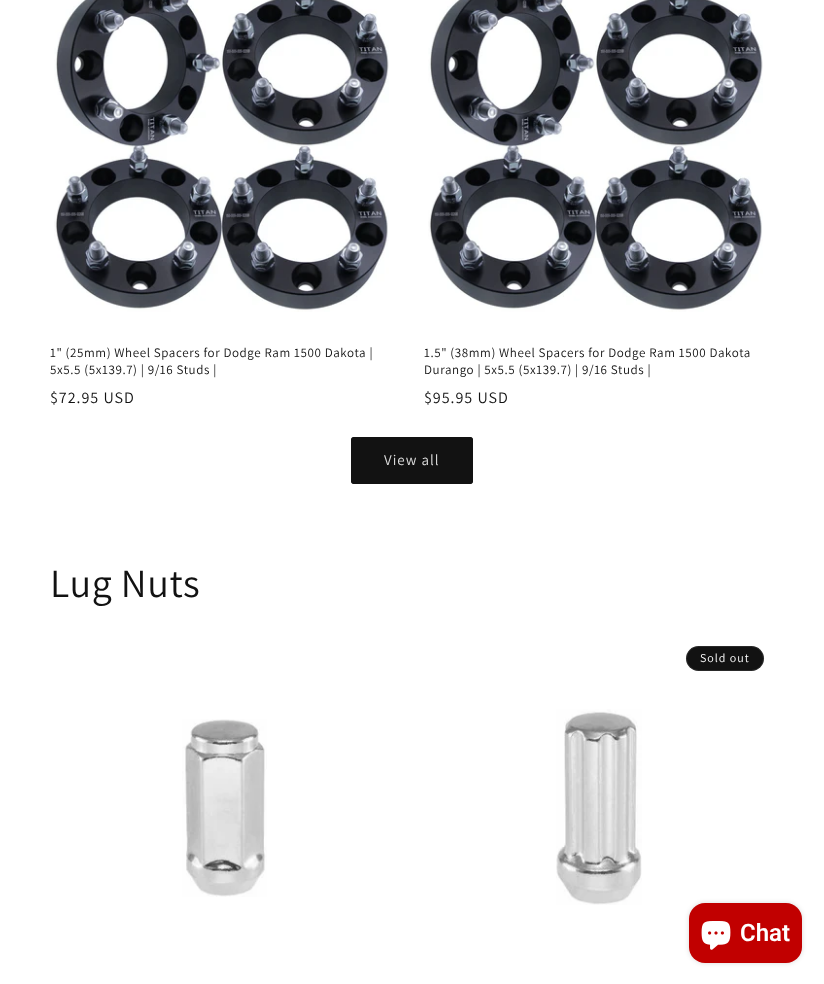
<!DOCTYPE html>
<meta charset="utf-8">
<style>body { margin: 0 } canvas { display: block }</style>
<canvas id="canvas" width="824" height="984"></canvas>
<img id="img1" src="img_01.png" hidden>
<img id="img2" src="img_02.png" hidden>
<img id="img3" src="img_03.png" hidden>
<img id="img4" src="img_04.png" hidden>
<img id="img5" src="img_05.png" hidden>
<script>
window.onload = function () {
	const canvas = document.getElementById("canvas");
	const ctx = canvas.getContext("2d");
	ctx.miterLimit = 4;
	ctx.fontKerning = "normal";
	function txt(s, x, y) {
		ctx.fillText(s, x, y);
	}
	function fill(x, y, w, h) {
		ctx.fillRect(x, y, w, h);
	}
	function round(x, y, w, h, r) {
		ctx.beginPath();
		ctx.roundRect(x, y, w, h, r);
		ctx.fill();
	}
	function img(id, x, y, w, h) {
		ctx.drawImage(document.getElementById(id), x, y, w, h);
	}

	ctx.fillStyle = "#FFFFFF";
	fill(0, 0, 824, 984);
	img("img1", 54, 0, 335, 312);
	img("img2", 428, 0, 335, 312);
	ctx.fillStyle = "#121212";
	round(351, 437, 122, 47, 3);
	ctx.beginPath();
	ctx.roundRect(351.5, 437.5, 121, 46, 2.5);
	ctx.strokeStyle = "#121212";
	ctx.stroke();
	round(686, 646, 78, 25, 12.5);
	ctx.beginPath();
	ctx.roundRect(686.5, 646.5, 77, 24, 12);
	ctx.strokeStyle = "rgba(255, 255, 255, 0.1)";
	ctx.stroke();
	img("img3", 556, 709, 86, 196);
	img("img4", 182, 719, 85, 178);
	ctx.fillStyle = "rgba(0, 0, 0, 0.15)";
	ctx.filter = "blur(2.5px)";
	ctx.beginPath();
	ctx.roundRect(689, 903, 113, 60, 16);
	ctx.fill();
	ctx.filter = "none";
	ctx.fillStyle = "#C10000";
	round(689, 903, 113, 60, 16);
	img("img5", 701, 921, 30, 29);
	ctx.letterSpacing = "0.6px";
	ctx.font = "13px Assistant";
	ctx.fillStyle = "#121212";
	txt("1\" (25mm) Wheel Spacers for Dodge Ram 1500 Dakota |", 50, 357);
	txt("5x5.5 (5x139.7) | 9/16 Studs |", 50, 374);
	ctx.letterSpacing = "1px";
	ctx.font = "16px Assistant";
	txt("$72.95 USD", 50, 403);
	ctx.letterSpacing = "0.6px";
	ctx.font = "13px Assistant";
	txt("1.5\" (38mm) Wheel Spacers for Dodge Ram 1500 Dakota", 424, 357);
	txt("Durango | 5x5.5 (5x139.7) | 9/16 Studs |", 424, 374);
	ctx.letterSpacing = "1px";
	ctx.font = "16px Assistant";
	txt("$95.95 USD", 424, 403);
	ctx.font = "15px Assistant";
	ctx.fillStyle = "#DEDEDE";
	txt("View all", 384, 465);
	ctx.letterSpacing = "0.6px";
	ctx.font = "40px Assistant";
	ctx.fillStyle = "#121212";
	txt("Lug Nuts", 50, 597);
	ctx.letterSpacing = "1px";
	ctx.font = "12px Assistant";
	ctx.fillStyle = "#FFFFFF";
	txt("Sold out", 700, 662);
	ctx.letterSpacing = "0px";
	ctx.font = "600 24px Roboto";
	txt("Chat", 740, 941);
};
</script>
